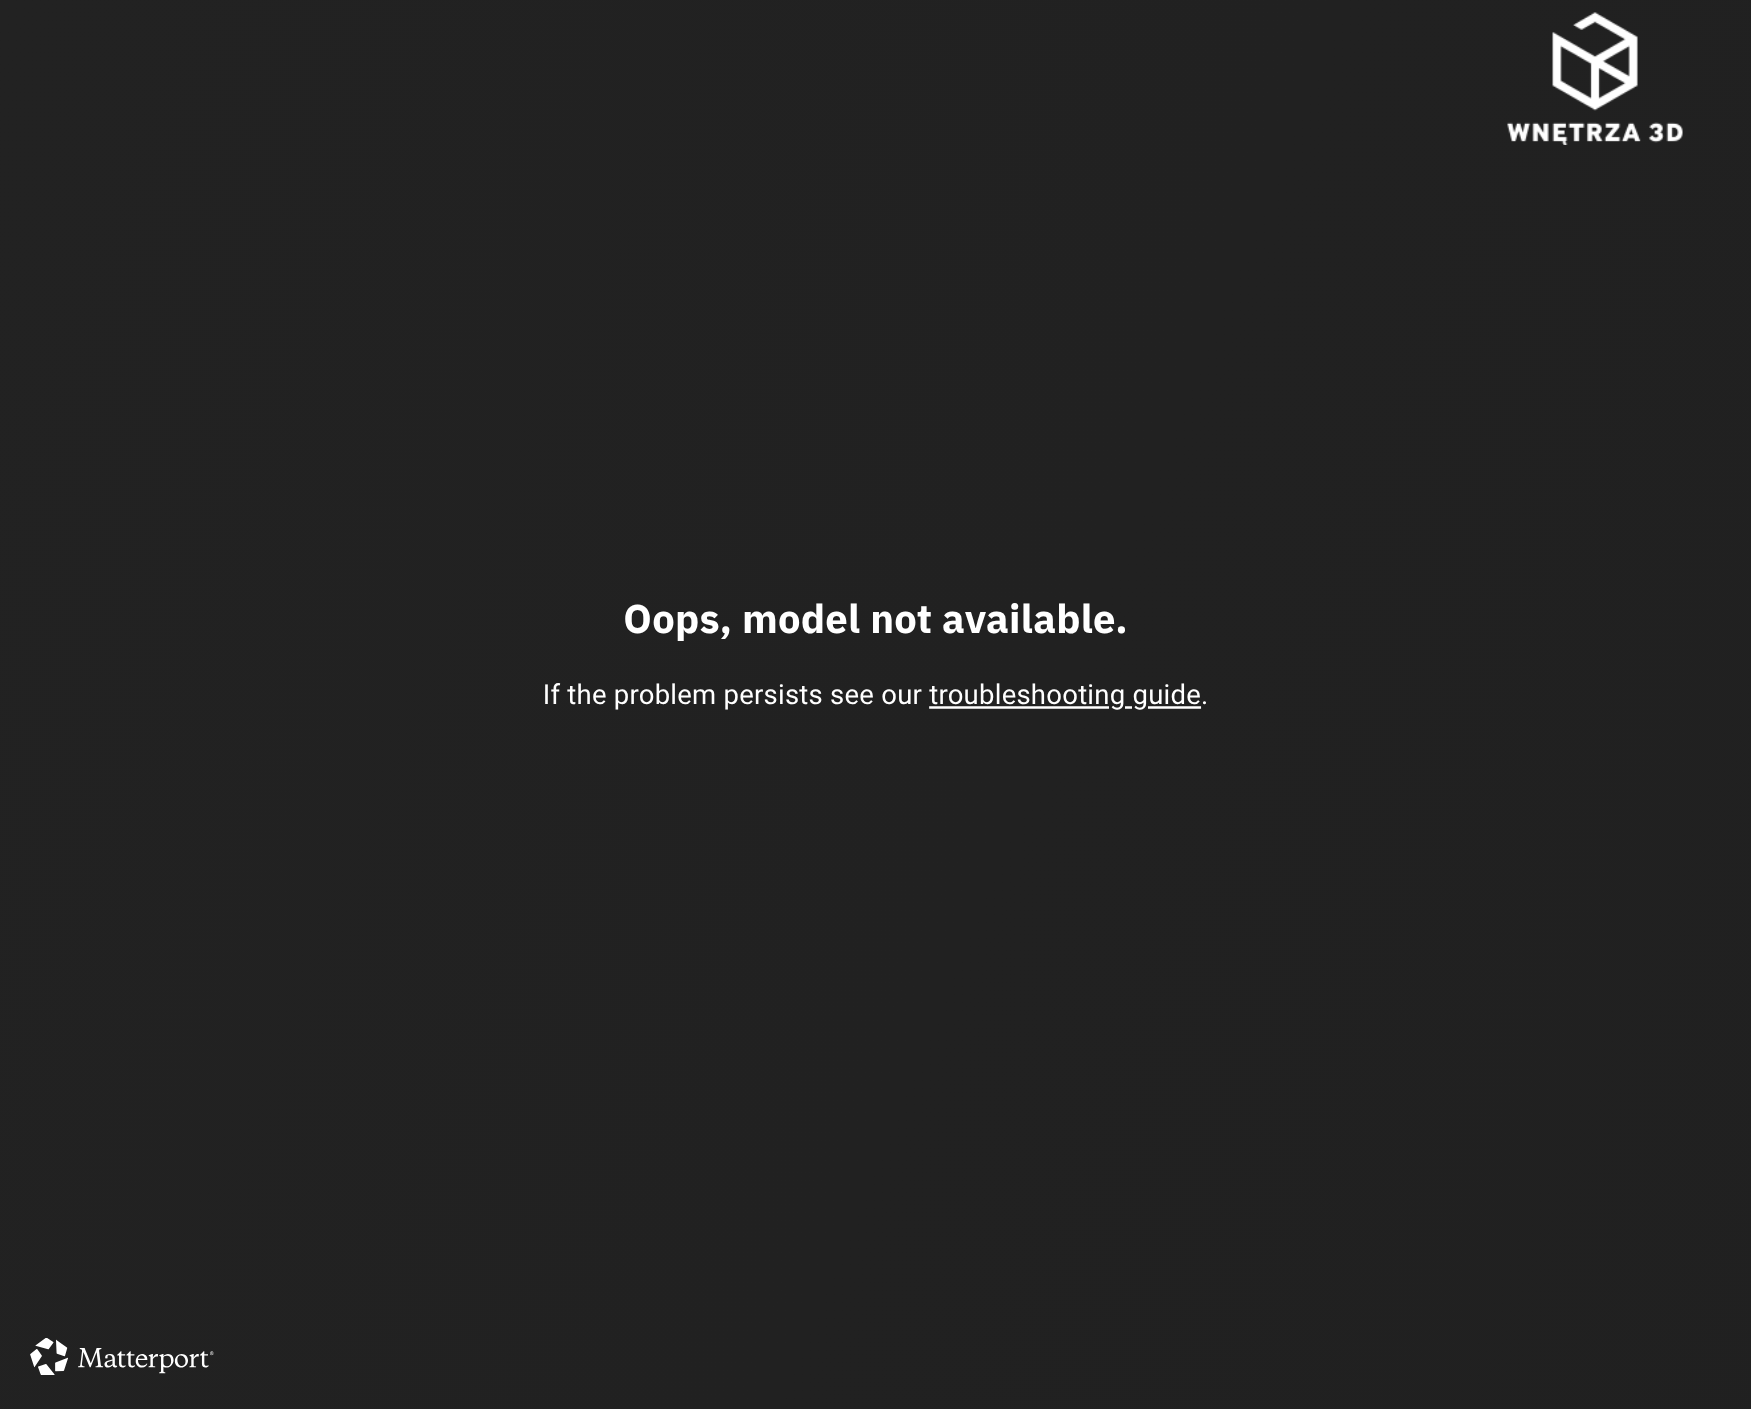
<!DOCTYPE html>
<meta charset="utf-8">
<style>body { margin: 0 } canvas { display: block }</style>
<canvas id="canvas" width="1751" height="1409"></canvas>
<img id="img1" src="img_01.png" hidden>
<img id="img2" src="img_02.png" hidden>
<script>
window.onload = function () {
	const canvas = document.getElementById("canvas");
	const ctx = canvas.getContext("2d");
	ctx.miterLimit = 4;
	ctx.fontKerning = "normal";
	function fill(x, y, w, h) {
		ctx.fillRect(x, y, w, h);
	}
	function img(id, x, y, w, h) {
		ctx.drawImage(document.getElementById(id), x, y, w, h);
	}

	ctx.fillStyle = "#FFFFFF";
	fill(0, 0, 1751, 1409);
	img("img1", 0, 0, 1751, 1409);
	img("img2", 1507, 12, 176, 133);
};
</script>
